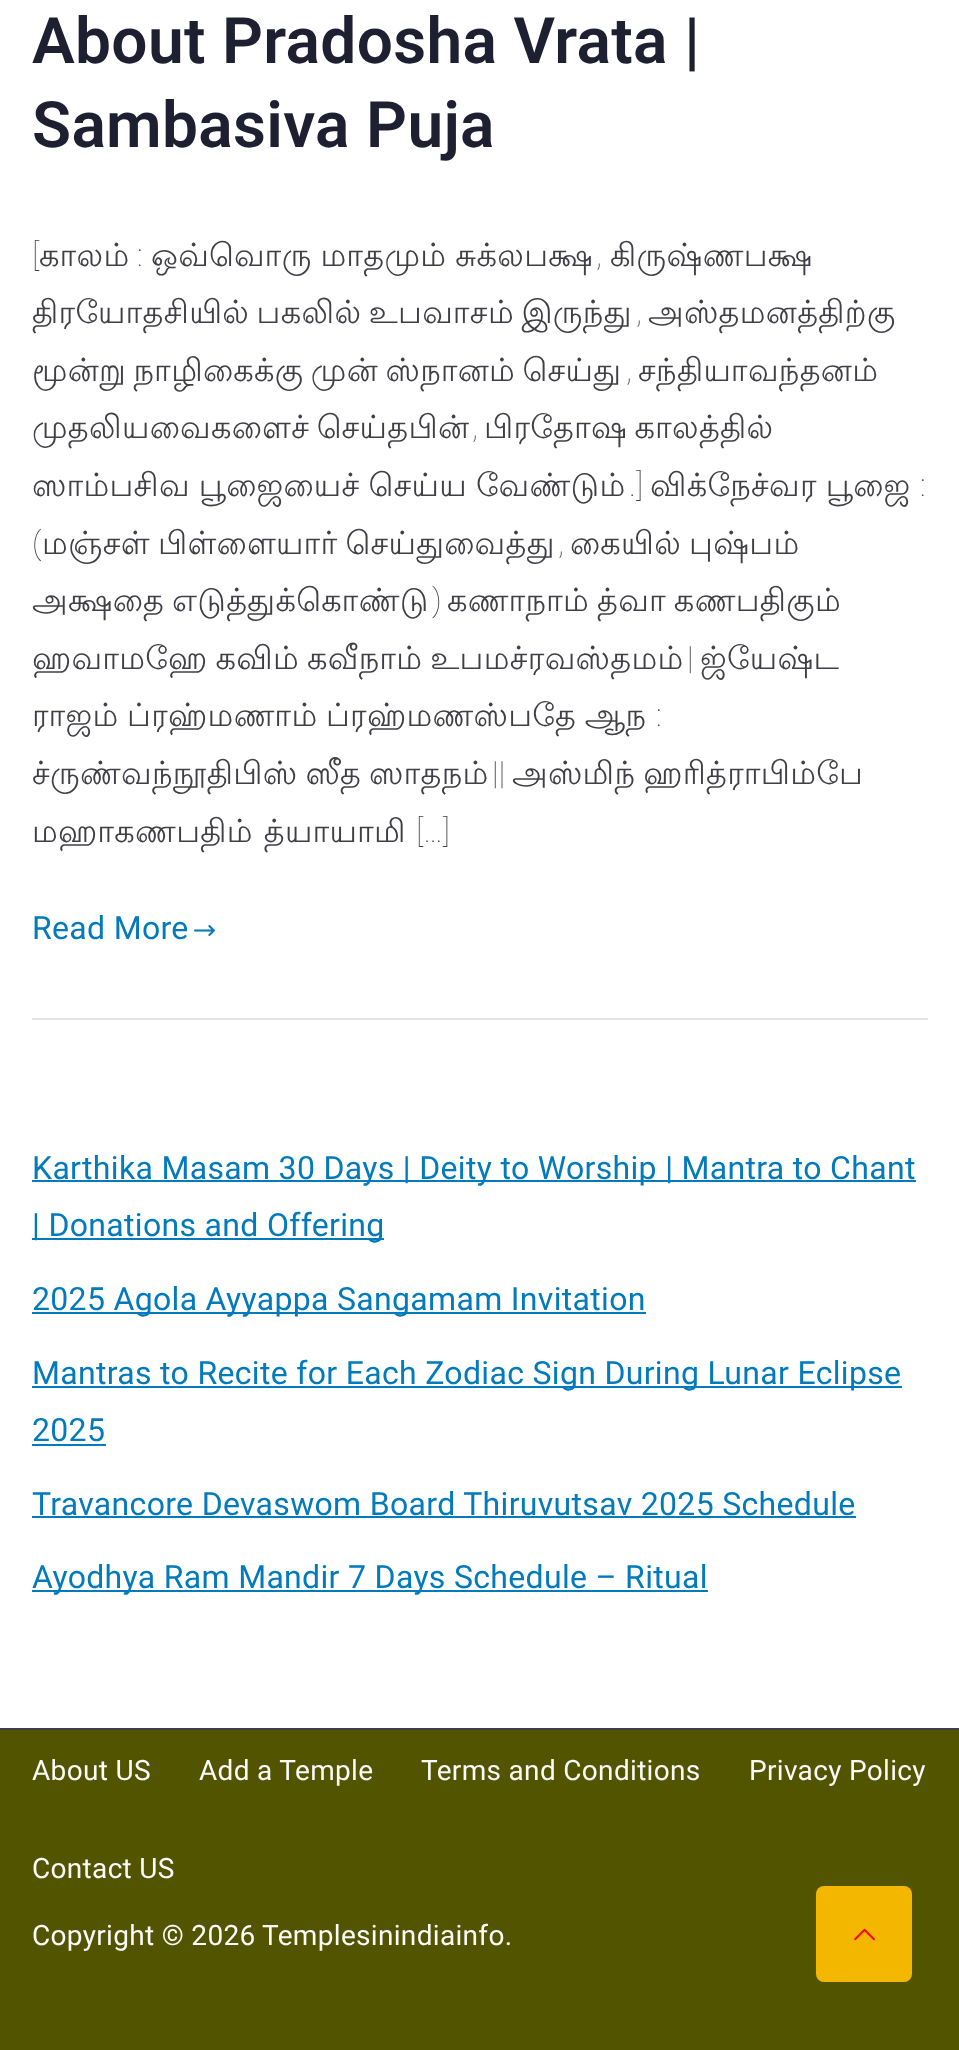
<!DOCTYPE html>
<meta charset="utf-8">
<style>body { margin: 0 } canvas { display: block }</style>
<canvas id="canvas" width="959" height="2050"></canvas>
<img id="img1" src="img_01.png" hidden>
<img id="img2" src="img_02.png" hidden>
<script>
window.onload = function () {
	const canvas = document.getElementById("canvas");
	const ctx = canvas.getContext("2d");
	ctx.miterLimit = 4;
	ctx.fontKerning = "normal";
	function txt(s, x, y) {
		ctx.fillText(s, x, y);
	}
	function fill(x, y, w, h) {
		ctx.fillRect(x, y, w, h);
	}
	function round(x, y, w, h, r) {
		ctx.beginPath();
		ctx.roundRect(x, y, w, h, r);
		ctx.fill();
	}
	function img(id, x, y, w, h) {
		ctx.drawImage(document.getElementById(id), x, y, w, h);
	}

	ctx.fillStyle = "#FFFFFF";
	fill(0, 0, 959, 2050);
	ctx.fillStyle = "#E4E4E7";
	fill(32, 1018, 896, 2);
	img("img1", 194, 925, 21, 11);
	ctx.fillStyle = "#027ABB";
	fill(32, 1180, 884, 2);
	fill(32, 1238, 352, 2);
	fill(32, 1312, 614, 2);
	fill(32, 1386, 870, 2);
	fill(32, 1444, 74, 2);
	fill(32, 1516, 824, 2);
	fill(32, 1590, 676, 2);
	ctx.fillStyle = "#535400";
	fill(0, 1730, 959, 320);
	ctx.fillStyle = "#3F3F46";
	fill(0, 1728, 959, 2);
	ctx.fillStyle = "#F4B700";
	round(816, 1886, 96, 96, 8);
	img("img2", 854, 1928, 21, 13);
	ctx.letterSpacing = "0.32px";
	ctx.font = "600 64px Roboto";
	ctx.fillStyle = "#1F1F32";
	txt("About Pradosha Vrata |", 32, 63);
	txt("Sambasiva Puja", 32, 147);
	ctx.font = "100 32px Roboto";
	ctx.fillStyle = "#3F3F46";
	txt("[", 32, 266);
	ctx.font = "32px Lohit Tamil";
	txt("காலம்", 39, 266);
	ctx.font = "100 32px Roboto";
	txt(":", 137, 266);
	ctx.wordSpacing = "-1px";
	ctx.font = "32px Lohit Tamil";
	txt("ஒவ்வொரு மாதமும் சுக்லபக்ஷ", 151, 266);
	ctx.wordSpacing = "0px";
	ctx.font = "100 32px Roboto";
	txt(",", 596, 266);
	ctx.font = "32px Lohit Tamil";
	txt("கிருஷ்ணபக்ஷ", 610, 266);
	ctx.wordSpacing = "-2.5px";
	txt("திரயோதசியில் பகலில் உபவாசம் இருந்து", 32, 323);
	ctx.wordSpacing = "0px";
	ctx.font = "100 32px Roboto";
	txt(",", 636, 323);
	ctx.font = "32px Lohit Tamil";
	txt("அஸ்தமனத்திற்கு", 648, 323);
	ctx.wordSpacing = "-2.5px";
	txt("மூன்று நாழிகைக்கு முன் ஸ்நானம் செய்து", 32, 381);
	ctx.wordSpacing = "0px";
	ctx.font = "100 32px Roboto";
	txt(",", 626, 381);
	ctx.font = "32px Lohit Tamil";
	txt("சந்தியாவந்தனம்", 638, 381);
	ctx.wordSpacing = "-2.5px";
	txt("முதலியவைகளைச் செய்தபின்", 32, 438);
	ctx.wordSpacing = "0px";
	ctx.font = "100 32px Roboto";
	txt(",", 472, 438);
	ctx.wordSpacing = "-2.5px";
	ctx.font = "32px Lohit Tamil";
	txt("பிரதோஷ காலத்தில்", 484, 438);
	ctx.wordSpacing = "-1px";
	txt("ஸாம்பசிவ பூஜையைச் செய்ய வேண்டும்", 32, 496);
	ctx.wordSpacing = "0px";
	ctx.font = "100 32px Roboto";
	txt(".]", 629, 496);
	ctx.wordSpacing = "-1px";
	ctx.font = "32px Lohit Tamil";
	txt("விக்நேச்வர பூஜை", 650, 496);
	ctx.wordSpacing = "0px";
	ctx.font = "100 32px Roboto";
	txt(":", 920, 496);
	txt("(", 32, 554);
	ctx.wordSpacing = "-2px";
	ctx.font = "32px Lohit Tamil";
	txt("மஞ்சள் பிள்ளையார் செய்துவைத்து", 42, 554);
	ctx.wordSpacing = "0px";
	ctx.font = "100 32px Roboto";
	txt(",", 558, 554);
	ctx.wordSpacing = "-2px";
	ctx.font = "32px Lohit Tamil";
	txt("கையில் புஷ்பம்", 570, 554);
	txt("அக்ஷதை எடுத்துக்கொண்டு", 32, 611);
	ctx.wordSpacing = "0px";
	ctx.font = "100 32px Roboto";
	txt(")", 432, 611);
	ctx.wordSpacing = "-2px";
	ctx.font = "32px Lohit Tamil";
	txt("கணாநாம் த்வா கணபதிகும்", 447, 611);
	txt("ஹவாமஹே கவிம் கவீநாம் உபமச்ரவஸ்தமம்", 32, 669);
	ctx.wordSpacing = "0px";
	ctx.font = "100 32px Roboto";
	txt("|", 687, 669);
	ctx.font = "32px Lohit Tamil";
	txt("ஜ்யேஷ்ட", 700, 669);
	ctx.wordSpacing = "-1.5px";
	txt("ராஜம் ப்ரஹ்மணாம் ப்ரஹ்மணஸ்பதே ஆந", 32, 726);
	ctx.wordSpacing = "0px";
	ctx.font = "100 32px Roboto";
	txt(":", 656, 726);
	ctx.wordSpacing = "-2px";
	ctx.font = "32px Lohit Tamil";
	txt("ச்ருண்வந்நூதிபிஸ் ஸீத ஸாதநம்", 32, 784);
	ctx.wordSpacing = "0px";
	ctx.font = "100 32px Roboto";
	txt("||", 492, 784);
	ctx.wordSpacing = "-2px";
	ctx.font = "32px Lohit Tamil";
	txt("அஸ்மிந் ஹரித்ராபிம்பே", 512, 784);
	ctx.wordSpacing = "1px";
	txt("மஹாகணபதிம் த்யாயாமி", 32, 842);
	ctx.wordSpacing = "0px";
	ctx.font = "100 32px Roboto";
	txt("[…]", 416, 842);
	ctx.font = "32px Roboto";
	ctx.fillStyle = "#027ABB";
	txt("Read More", 32, 939);
	txt("Karthika Masam 30 Days | Deity to Worship | Mantra to Chant", 32, 1179);
	txt("| Donations and Offering", 32, 1236);
	txt("2025 Agola Ayyappa Sangamam Invitation", 32, 1310);
	txt("Mantras to Recite for Each Zodiac Sign During Lunar Eclipse", 32, 1384);
	txt("2025", 32, 1441);
	txt("Travancore Devaswom Board Thiruvutsav 2025 Schedule", 32, 1515);
	txt("Ayodhya Ram Mandir 7 Days Schedule – Ritual", 32, 1588);
	ctx.font = "28px Roboto";
	ctx.fillStyle = "#FAFAFA";
	txt("About US", 32, 1780);
	txt("Add a Temple", 199, 1780);
	txt("Terms and Conditions", 421, 1780);
	txt("Privacy Policy", 749, 1780);
	txt("Contact US", 32, 1878);
	txt("Copyright © 2026", 32, 1945);
	txt("Templesinindiainfo.", 262, 1945);
};
</script>
